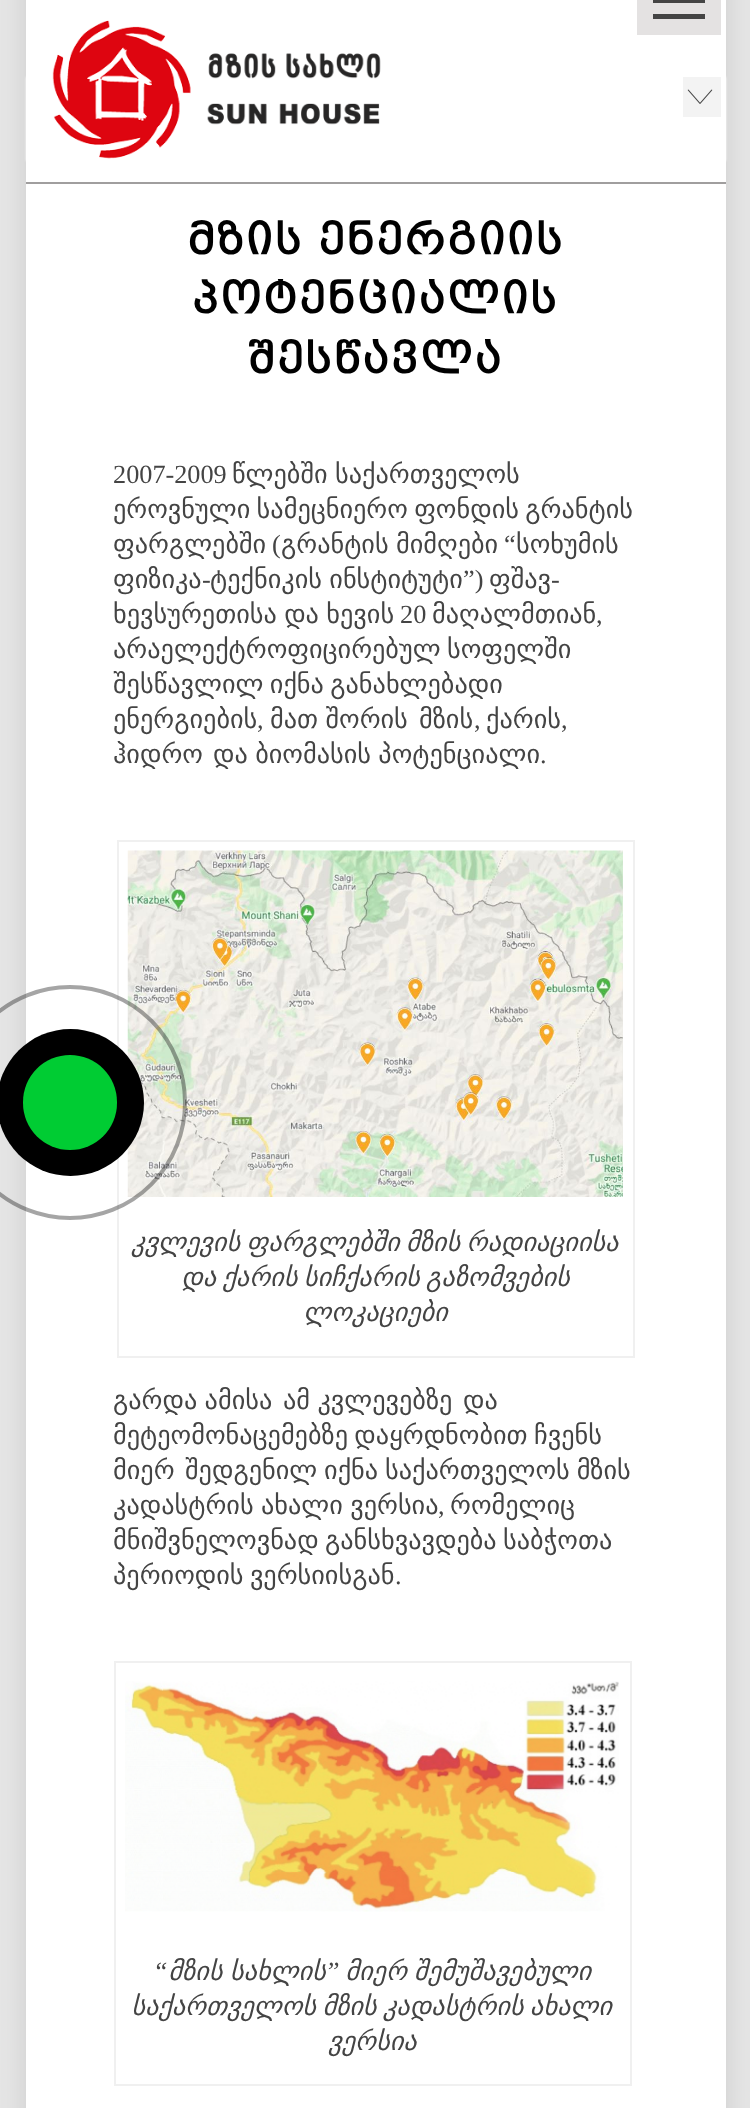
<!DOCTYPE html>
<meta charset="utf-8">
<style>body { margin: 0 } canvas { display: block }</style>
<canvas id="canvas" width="750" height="2108"></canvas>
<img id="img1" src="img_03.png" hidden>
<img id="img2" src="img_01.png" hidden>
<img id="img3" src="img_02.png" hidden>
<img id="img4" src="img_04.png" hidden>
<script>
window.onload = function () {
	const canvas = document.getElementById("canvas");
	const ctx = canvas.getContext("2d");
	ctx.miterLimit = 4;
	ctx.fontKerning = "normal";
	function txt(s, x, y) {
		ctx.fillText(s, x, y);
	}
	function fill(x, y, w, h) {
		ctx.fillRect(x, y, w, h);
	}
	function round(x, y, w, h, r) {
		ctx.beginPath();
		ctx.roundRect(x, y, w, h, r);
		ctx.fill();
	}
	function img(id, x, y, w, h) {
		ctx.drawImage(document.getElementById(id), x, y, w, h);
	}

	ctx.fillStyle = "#E5E5E5";
	fill(0, 0, 750, 2108);
	ctx.fillStyle = "rgba(0, 0, 0, 0.1)";
	ctx.filter = "blur(13px)";
	ctx.beginPath();
	ctx.rect(26, -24, 700, 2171);
	ctx.fill();
	ctx.filter = "none";
	ctx.fillStyle = "#FFFFFF";
	fill(26, 0, 700, 2108);
	ctx.strokeStyle = "#F0F0F0";
	ctx.lineWidth = 2;
	ctx.strokeRect(118, 841, 516, 516);
	img("img1", 127, 850, 496, 347);
	ctx.beginPath();
	ctx.roundRect(-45, 987, 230, 231, 115);
	ctx.strokeStyle = "rgba(30, 30, 30, 0.4)";
	ctx.lineWidth = 4;
	ctx.stroke();
	ctx.fillStyle = "#000000";
	ctx.beginPath();
	ctx.arc(70.5, 1102.5, 73.5, 0, Math.PI * 2);
	ctx.fill();
	ctx.fillStyle = "#00CC33";
	round(23, 1055, 94, 95, 47);
	ctx.fillStyle = "#A09E9E";
	fill(26, 182, 700, 2);
	ctx.save();
	ctx.beginPath();
	ctx.moveTo(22, 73);
	ctx.lineTo(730, 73);
	ctx.lineTo(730, 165);
	ctx.lineTo(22, 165);
	ctx.closePath();
	ctx.moveTo(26, 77);
	ctx.lineTo(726, 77);
	ctx.lineTo(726, 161);
	ctx.lineTo(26, 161);
	ctx.closePath();
	ctx.clip("evenodd");
	ctx.fillStyle = "#FFFFFF";
	ctx.filter = "blur(1px)";
	ctx.beginPath();
	ctx.rect(26, 77, 700, 84);
	ctx.fill();
	ctx.filter = "none";
	ctx.restore();
	img("img2", 52, 20, 329, 139);
	ctx.fillStyle = "#E4E2E2";
	fill(637, 0, 84, 35);
	ctx.fillStyle = "#444444";
	fill(653, 0, 52, 3);
	fill(653, 14, 52, 5);
	ctx.fillStyle = "#F3F3F3";
	fill(683, 77, 38, 40);
	img("img3", 687, 89, 26, 15);
	ctx.strokeStyle = "#F0F0F0";
	ctx.lineWidth = 2;
	ctx.strokeRect(115, 1662, 516, 423);
	img("img4", 125, 1681, 494, 231);
	ctx.letterSpacing = "1.75px";
	ctx.font = "bold 42px 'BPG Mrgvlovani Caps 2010'";
	ctx.fillStyle = "#000000";
	txt("მზის ენერგიის", 187, 254);
	txt("პოტენციალის", 192, 313);
	txt("შესწავლა", 248, 373);
	ctx.letterSpacing = "0px";
	ctx.font = "26.25px Liberation Serif";
	ctx.fillStyle = "#444444";
	txt("2007-2009", 113, 483);
	ctx.wordSpacing = "-1px";
	ctx.font = "26.25px DejaVu Sans";
	txt("წლებში საქართველოს", 232, 483);
	ctx.wordSpacing = "-2px";
	txt("ეროვნული სამეცნიერო ფონდის გრანტის", 113, 518);
	ctx.wordSpacing = "0px";
	txt("ფარგლებში", 113, 553);
	ctx.font = "26.25px Liberation Serif";
	txt("(", 272, 553);
	ctx.wordSpacing = "-1px";
	ctx.font = "26.25px DejaVu Sans";
	txt("გრანტის მიმღები", 281, 553);
	ctx.wordSpacing = "0px";
	ctx.font = "26.25px Liberation Serif";
	txt("“", 504, 553);
	ctx.font = "26.25px DejaVu Sans";
	txt("სოხუმის", 516, 553);
	txt("ფიზიკა", 113, 588);
	ctx.font = "26.25px Liberation Serif";
	txt("-", 202, 588);
	ctx.wordSpacing = "-1px";
	ctx.font = "26.25px DejaVu Sans";
	txt("ტექნიკის ინსტიტუტი", 210, 588);
	ctx.wordSpacing = "0px";
	ctx.font = "26.25px Liberation Serif";
	txt("”)", 463, 588);
	ctx.font = "26.25px DejaVu Sans";
	txt("ფშავ", 489, 588);
	ctx.font = "26.25px Liberation Serif";
	txt("-", 551, 588);
	ctx.wordSpacing = "-1px";
	ctx.font = "26.25px DejaVu Sans";
	txt("ხევსურეთისა და ხევის", 113, 623);
	ctx.wordSpacing = "0px";
	ctx.font = "26.25px Liberation Serif";
	txt("20", 400, 623);
	ctx.font = "26.25px DejaVu Sans";
	txt("მაღალმთიან", 432, 623);
	ctx.font = "26.25px Liberation Serif";
	txt(",", 596, 623);
	ctx.wordSpacing = "-2px";
	ctx.font = "26.25px DejaVu Sans";
	txt("არაელექტროფიცირებულ სოფელში", 113, 658);
	txt("შესწავლილ იქნა განახლებადი", 113, 693);
	ctx.wordSpacing = "0px";
	txt("ენერგიების", 113, 728);
	ctx.font = "26.25px Liberation Serif";
	txt(",", 257, 728);
	ctx.wordSpacing = "-1px";
	ctx.font = "26.25px DejaVu Sans";
	txt("მათ შორის", 270, 728);
	ctx.wordSpacing = "0px";
	txt("მზის", 419, 728);
	ctx.font = "26.25px Liberation Serif";
	txt(",", 474, 728);
	ctx.font = "26.25px DejaVu Sans";
	txt("ქარის", 486, 728);
	ctx.font = "26.25px Liberation Serif";
	txt(",", 561, 728);
	ctx.font = "26.25px DejaVu Sans";
	txt("ჰიდრო", 113, 763);
	ctx.wordSpacing = "-1px";
	txt("და ბიომასის პოტენციალი", 213, 763);
	ctx.wordSpacing = "0px";
	ctx.font = "26.25px Liberation Serif";
	txt(".", 540, 763);
	ctx.wordSpacing = "-2px";
	ctx.font = "italic 26.25px DejaVu Sans";
	txt("კვლევის ფარგლებში მზის რადიაციისა", 131, 1251);
	txt("და ქარის სიჩქარის გაზომვების", 181, 1286);
	ctx.wordSpacing = "0px";
	txt("ლოკაციები", 303, 1321);
	ctx.wordSpacing = "-1px";
	ctx.font = "26.25px DejaVu Sans";
	txt("გარდა ამისა", 113, 1409);
	txt("ამ კვლევებზე", 283, 1409);
	ctx.wordSpacing = "0px";
	txt("და", 463, 1409);
	ctx.wordSpacing = "-2px";
	txt("მეტეომონაცემებზე დაყრდნობით ჩვენს", 113, 1444);
	ctx.wordSpacing = "0px";
	txt("მიერ", 113, 1479);
	ctx.wordSpacing = "-1.5px";
	txt("შედგენილ იქნა საქართველოს მზის", 185, 1479);
	ctx.wordSpacing = "-1px";
	txt("კადასტრის ახალი ვერსია", 113, 1514);
	ctx.wordSpacing = "0px";
	ctx.font = "26.25px Liberation Serif";
	txt(",", 438, 1514);
	ctx.font = "26.25px DejaVu Sans";
	txt("რომელიც", 450, 1514);
	ctx.wordSpacing = "-2px";
	txt("მნიშვნელოვნად განსხვავდება საბჭოთა", 113, 1549);
	txt("პერიოდის ვერსიისგან", 113, 1584);
	ctx.wordSpacing = "0px";
	ctx.font = "26.25px Liberation Serif";
	txt(".", 395, 1584);
	ctx.font = "italic 26.25px Liberation Serif";
	txt("“", 153, 1980);
	ctx.wordSpacing = "-1px";
	ctx.font = "italic 26.25px DejaVu Sans";
	txt("მზის სახლის", 168, 1980);
	ctx.wordSpacing = "0px";
	ctx.font = "italic 26.25px Liberation Serif";
	txt("”", 325, 1980);
	ctx.wordSpacing = "-1px";
	ctx.font = "italic 26.25px DejaVu Sans";
	txt("მიერ შემუშავებული", 345, 1980);
	ctx.wordSpacing = "-2px";
	txt("საქართველოს მზის კადასტრის ახალი", 131, 2015);
	ctx.wordSpacing = "0px";
	txt("ვერსია", 328, 2050);
};
</script>
